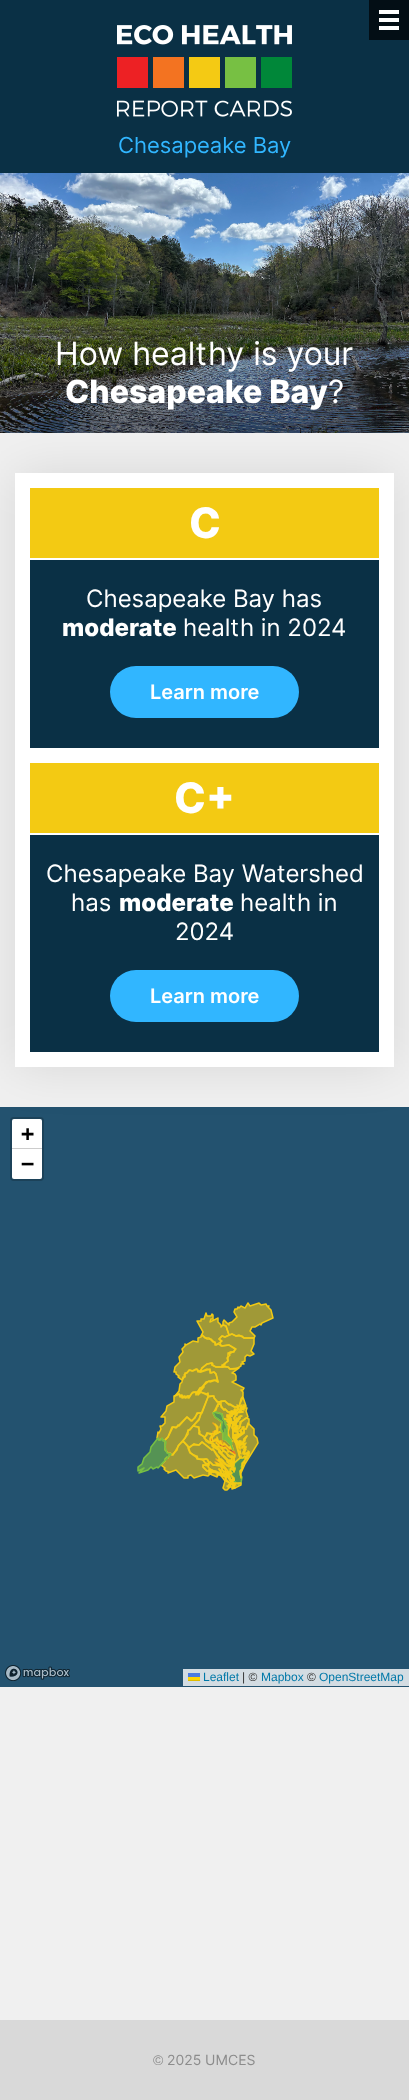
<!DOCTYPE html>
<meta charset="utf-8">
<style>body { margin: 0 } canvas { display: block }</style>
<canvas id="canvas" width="409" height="2100"></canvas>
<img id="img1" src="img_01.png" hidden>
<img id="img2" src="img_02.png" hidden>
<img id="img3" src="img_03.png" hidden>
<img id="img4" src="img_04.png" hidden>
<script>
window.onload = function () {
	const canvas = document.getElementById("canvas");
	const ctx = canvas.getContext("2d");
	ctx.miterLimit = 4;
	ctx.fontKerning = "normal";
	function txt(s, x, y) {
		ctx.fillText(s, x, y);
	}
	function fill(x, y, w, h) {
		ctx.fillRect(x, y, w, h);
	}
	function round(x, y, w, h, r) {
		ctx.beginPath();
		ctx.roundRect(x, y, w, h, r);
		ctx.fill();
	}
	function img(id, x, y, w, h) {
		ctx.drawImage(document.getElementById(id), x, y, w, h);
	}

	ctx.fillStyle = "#F0F0F0";
	fill(0, 0, 409, 2100);
	ctx.fillStyle = "#0A3045";
	fill(0, 0, 409, 173);
	ctx.fillStyle = "#030E15";
	fill(369, 0, 40, 40);
	ctx.fillStyle = "#FFFFFF";
	fill(379, 18, 20, 4);
	fill(379, 10, 20, 4);
	fill(379, 26, 20, 4);
	img("img1", 117, 25, 175, 92);
	img("img2", 0, 173, 409, 260);
	ctx.fillStyle = "#23526F";
	fill(0, 1107, 409, 580);
	ctx.beginPath();
	ctx.roundRect(11, 1118, 32, 62, 3);
	ctx.strokeStyle = "#1C4259";
	ctx.lineWidth = 2;
	ctx.stroke();
	ctx.fillStyle = "#FFFFFF";
	ctx.beginPath();
	ctx.roundRect(12, 1119, 30, 30, [2, 2, 0, 0]);
	ctx.fill();
	ctx.fillStyle = "rgba(0, 0, 0, 0.1)";
	ctx.filter = "blur(25px)";
	ctx.beginPath();
	ctx.rect(15, 473, 379, 594);
	ctx.fill();
	ctx.filter = "none";
	ctx.fillStyle = "#FFFFFF";
	fill(15, 473, 379, 594);
	ctx.fillStyle = "#0A3045";
	fill(30, 560, 349, 188);
	ctx.fillStyle = "#F3CA13";
	fill(30, 488, 349, 70);
	ctx.fillStyle = "#31B6FF";
	round(110, 666, 189, 52, 26);
	ctx.fillStyle = "#0A3045";
	fill(30, 835, 349, 217);
	ctx.fillStyle = "#F3CA13";
	fill(30, 763, 349, 70);
	ctx.fillStyle = "#31B6FF";
	round(110, 970, 189, 52, 26);
	ctx.fillStyle = "#CCCCCC";
	fill(12, 1148, 30, 1);
	ctx.fillStyle = "#FFFFFF";
	ctx.beginPath();
	ctx.roundRect(12, 1149, 30, 30, [0, 0, 2, 2]);
	ctx.fill();
	ctx.fillStyle = "#D3DCE2";
	fill(183, 1669, 226, 17);
	ctx.fillStyle = "#4C7BE1";
	fill(188, 1673, 12, 4);
	ctx.fillStyle = "#FFD500";
	fill(188, 1677, 12, 3);
	ctx.fillStyle = "#E0BC00";
	fill(188, 1680, 12, 1);
	img("img3", 137, 1302, 137, 189);
	img("img4", 5, 1665, 65, 16);
	ctx.fillStyle = "#D9D9D9";
	fill(0, 2020, 409, 80);
	ctx.font = "22px Inter";
	ctx.fillStyle = "#31B6FF";
	txt("Chesapeake Bay", 118, 153);
	ctx.font = "32px Inter";
	ctx.fillStyle = "#FFFFFF";
	txt("How healthy is your", 55, 365);
	ctx.font = "800 32px Inter";
	txt("Chesapeake Bay", 65, 403);
	ctx.font = "32px Inter";
	txt("?", 328, 403);
	ctx.font = "800 42px Inter";
	txt("C", 189, 538);
	ctx.font = "24px Inter";
	txt("Chesapeake Bay has", 86, 607);
	ctx.font = "800 24px Inter";
	txt("moderate", 62, 636);
	ctx.font = "24px Inter";
	txt("health in 2024", 183, 636);
	ctx.font = "600 20px Inter";
	txt("Learn more", 150, 699);
	ctx.font = "800 42px Inter";
	txt("C+", 174, 813);
	ctx.font = "24px Inter";
	txt("Chesapeake Bay Watershed", 46, 882);
	txt("has", 71, 911);
	ctx.font = "800 24px Inter";
	txt("moderate", 119, 911);
	ctx.font = "24px Inter";
	txt("health in", 240, 911);
	txt("2024", 175, 940);
	ctx.font = "600 20px Inter";
	txt("Learn more", 150, 1003);
	ctx.font = "bold 22px DejaVu Sans Mono";
	ctx.fillStyle = "#000000";
	txt("+", 21, 1141);
	txt("−", 21, 1171);
	ctx.font = "12px Liberation Sans";
	ctx.fillStyle = "#0078A8";
	txt("Leaflet", 203, 1681);
	ctx.fillStyle = "#333333";
	txt("| ©", 242, 1681);
	ctx.fillStyle = "#0078A8";
	txt("Mapbox", 261, 1681);
	ctx.fillStyle = "#333333";
	txt("©", 307, 1681);
	ctx.fillStyle = "#0078A8";
	txt("OpenStreetMap", 319, 1681);
	ctx.font = "14px Liberation Sans";
	ctx.fillStyle = "#8C8C8C";
	txt("©", 153, 2065);
	ctx.font = "14px Inter";
	txt("2025 UMCES", 167, 2065);
};
</script>
